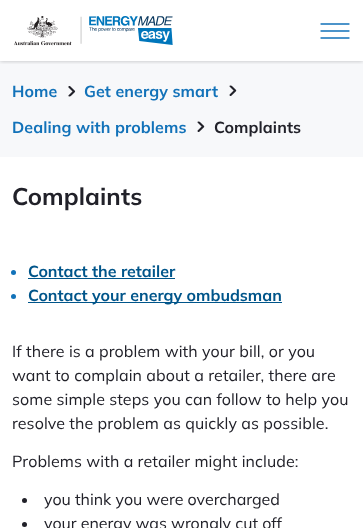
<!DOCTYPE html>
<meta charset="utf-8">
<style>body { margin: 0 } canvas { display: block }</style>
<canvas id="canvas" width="363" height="528"></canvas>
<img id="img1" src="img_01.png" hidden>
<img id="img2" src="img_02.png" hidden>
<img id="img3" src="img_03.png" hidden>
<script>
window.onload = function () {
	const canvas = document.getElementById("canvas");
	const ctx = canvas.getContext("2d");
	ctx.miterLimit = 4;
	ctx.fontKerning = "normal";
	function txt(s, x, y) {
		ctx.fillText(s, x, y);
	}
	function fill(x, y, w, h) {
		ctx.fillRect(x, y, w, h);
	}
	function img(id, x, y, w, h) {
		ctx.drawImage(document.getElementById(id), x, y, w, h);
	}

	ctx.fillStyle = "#FFFFFF";
	fill(0, 0, 363, 528);
	ctx.fillStyle = "#F7F8FA";
	fill(0, 61, 363, 96);
	ctx.save();
	ctx.beginPath();
	ctx.rect(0, 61, 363, 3);
	ctx.clip();
	ctx.fillStyle = "rgba(0, 0, 0, 0.25)";
	ctx.filter = "blur(2px)";
	ctx.beginPath();
	ctx.rect(0, 0, 363, 61);
	ctx.fill();
	ctx.filter = "none";
	ctx.restore();
	img("img1", 14, 16, 159, 30);
	ctx.beginPath();
	ctx.moveTo(321, 24);
	ctx.lineTo(349, 24);
	ctx.moveTo(321, 38);
	ctx.lineTo(349, 38);
	ctx.moveTo(321, 31);
	ctx.lineTo(349, 31);
	ctx.strokeStyle = "#1272B9";
	ctx.lineWidth = 1.3;
	ctx.lineCap = "round";
	ctx.stroke();
	img("img2", 68, 86, 8, 11);
	img("img3", 229, 85, 8, 11);
	img("img3", 197, 121, 8, 11);
	ctx.fillStyle = "#1272B9";
	ctx.beginPath();
	ctx.arc(13.5, 272.5, 2.5, 0, Math.PI * 2);
	ctx.fill();
	ctx.fillStyle = "#00558A";
	fill(28, 278, 147, 1);
	ctx.fillStyle = "#1272B9";
	ctx.beginPath();
	ctx.arc(13.5, 296.5, 2.5, 0, Math.PI * 2);
	ctx.fill();
	ctx.fillStyle = "#00558A";
	fill(28, 302, 254, 1);
	ctx.fillStyle = "#212129";
	ctx.beginPath();
	ctx.arc(24.5, 500.5, 2.5, 0, Math.PI * 2);
	ctx.fill();
	ctx.beginPath();
	ctx.arc(24.5, 524.5, 2.5, 0, Math.PI * 2);
	ctx.fill();
	ctx.letterSpacing = "0.1px";
	ctx.font = "bold 16px Mulish";
	ctx.fillStyle = "#1272B9";
	txt("Home", 12, 97);
	txt("Get energy smart", 84, 97);
	txt("Dealing with problems", 12, 133);
	ctx.fillStyle = "#212129";
	txt("Complaints", 214, 133);
	ctx.font = "bold 24px Mulish";
	txt("Complaints", 12, 205);
	ctx.letterSpacing = "0px";
	ctx.font = "bold 16px Mulish";
	ctx.fillStyle = "#00558A";
	txt("Contact the retailer", 28, 277);
	txt("Contact your energy ombudsman", 28, 301);
	ctx.letterSpacing = "0.1px";
	ctx.font = "16px Mulish";
	ctx.fillStyle = "#212129";
	txt("If there is a problem with your bill, or you", 12, 357);
	txt("want to complain about a retailer, there are", 12, 381);
	txt("some simple steps you can follow to help you", 12, 405);
	txt("resolve the problem as quickly as possible.", 12, 429);
	txt("Problems with a retailer might include:", 12, 467);
	ctx.letterSpacing = "0px";
	txt("you think you were overcharged", 44, 505);
	txt("your energy was wrongly cut off", 44, 529);
};
</script>
